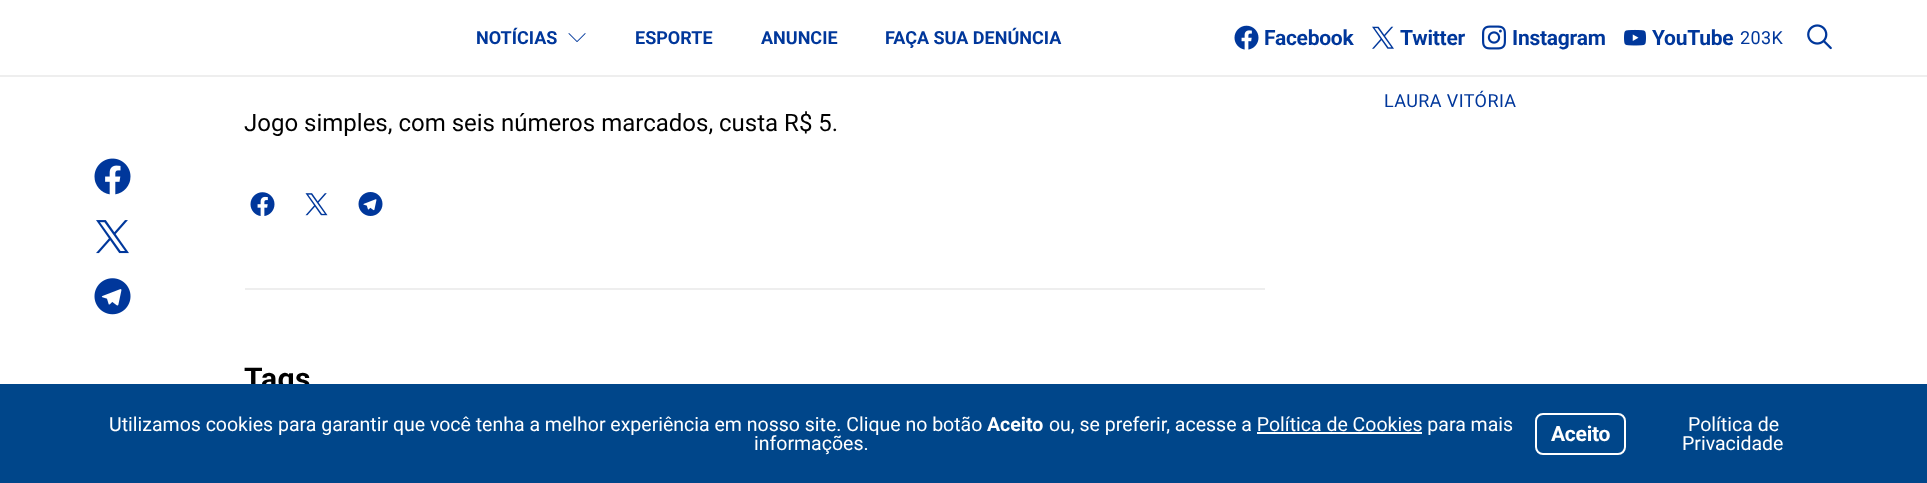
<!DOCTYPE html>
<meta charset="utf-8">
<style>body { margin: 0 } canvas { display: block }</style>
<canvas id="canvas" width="1927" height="483"></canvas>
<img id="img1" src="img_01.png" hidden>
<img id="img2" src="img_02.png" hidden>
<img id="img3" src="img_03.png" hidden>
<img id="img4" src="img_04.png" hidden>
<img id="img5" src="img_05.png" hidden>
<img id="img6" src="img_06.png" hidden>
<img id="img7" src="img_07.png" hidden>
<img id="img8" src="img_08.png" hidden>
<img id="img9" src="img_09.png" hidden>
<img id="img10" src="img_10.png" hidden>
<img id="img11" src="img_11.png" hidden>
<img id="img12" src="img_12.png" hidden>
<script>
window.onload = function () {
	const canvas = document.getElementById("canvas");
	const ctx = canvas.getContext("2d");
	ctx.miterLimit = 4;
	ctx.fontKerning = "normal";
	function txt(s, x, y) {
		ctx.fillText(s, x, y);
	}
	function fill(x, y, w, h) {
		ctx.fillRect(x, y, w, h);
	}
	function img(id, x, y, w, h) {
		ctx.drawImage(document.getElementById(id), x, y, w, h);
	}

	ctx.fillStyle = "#FFFFFF";
	fill(0, 0, 1927, 483);
	ctx.fillStyle = "#EEEEEE";
	fill(0, 75, 1927, 2);
	img("img1", 568, 33, 18, 9);
	img("img2", 1234, 25, 25, 25);
	img("img3", 1372, 26, 22, 23);
	img("img4", 1482, 25, 24, 25);
	img("img5", 1624, 29, 22, 17);
	img("img6", 1807, 24, 25, 26);
	img("img7", 94, 158, 37, 37);
	img("img8", 96, 220, 33, 34);
	img("img9", 94, 278, 37, 37);
	img("img10", 250, 192, 25, 24);
	img("img11", 305, 193, 23, 23);
	img("img12", 358, 192, 25, 24);
	fill(245, 288, 1020, 2);
	ctx.font = "bold 18px Roboto";
	ctx.fillStyle = "#00379B";
	txt("NOTÍCIAS", 476, 44);
	txt("ESPORTE", 635, 44);
	txt("ANUNCIE", 761, 44);
	txt("FAÇA SUA DENÚNCIA", 885, 44);
	ctx.letterSpacing = "-0.25px";
	ctx.font = "bold 21px Roboto";
	txt("Facebook", 1264, 45);
	txt("Twitter", 1400, 45);
	txt("Instagram", 1512, 45);
	txt("YouTube", 1652, 45);
	ctx.letterSpacing = "0.4px";
	ctx.font = "18px Roboto";
	txt("203K", 1740, 44);
	txt("LAURA VITÓRIA", 1384, 107);
	ctx.letterSpacing = "0px";
	ctx.font = "24px Roboto";
	ctx.fillStyle = "#000000";
	txt("Jogo simples, com seis números marcados, custa R$ 5.", 244, 131);
	ctx.letterSpacing = "0.5px";
	ctx.font = "bold 30px Roboto";
	txt("Tags", 244, 389);
	ctx.fillStyle = "#00468A";
	fill(0, 384, 1927, 99);
	ctx.letterSpacing = "0px";
	ctx.font = "19.5px Roboto";
	ctx.fillStyle = "#FFFFFF";
	txt("Utilizamos cookies para garantir que você tenha a melhor experiência em nosso site. Clique no botão", 109, 431);
	ctx.font = "bold 19.5px Roboto";
	txt("Aceito", 987, 431);
	ctx.font = "19.5px Roboto";
	txt("ou, se preferir, acesse a Política de Cookies para mais", 1049, 431);
	fill(1257, 432, 165, 2);
	txt("informações.", 754, 450);
	ctx.beginPath();
	ctx.roundRect(1536, 414, 89, 40, 7);
	ctx.strokeStyle = "#FFFFFF";
	ctx.lineWidth = 2;
	ctx.stroke();
	ctx.letterSpacing = "-0.25px";
	ctx.font = "bold 21px Roboto";
	txt("Aceito", 1551, 441);
	ctx.letterSpacing = "0px";
	ctx.font = "19.5px Roboto";
	txt("Política de", 1688, 431);
	txt("Privacidade", 1682, 450);
};
</script>
